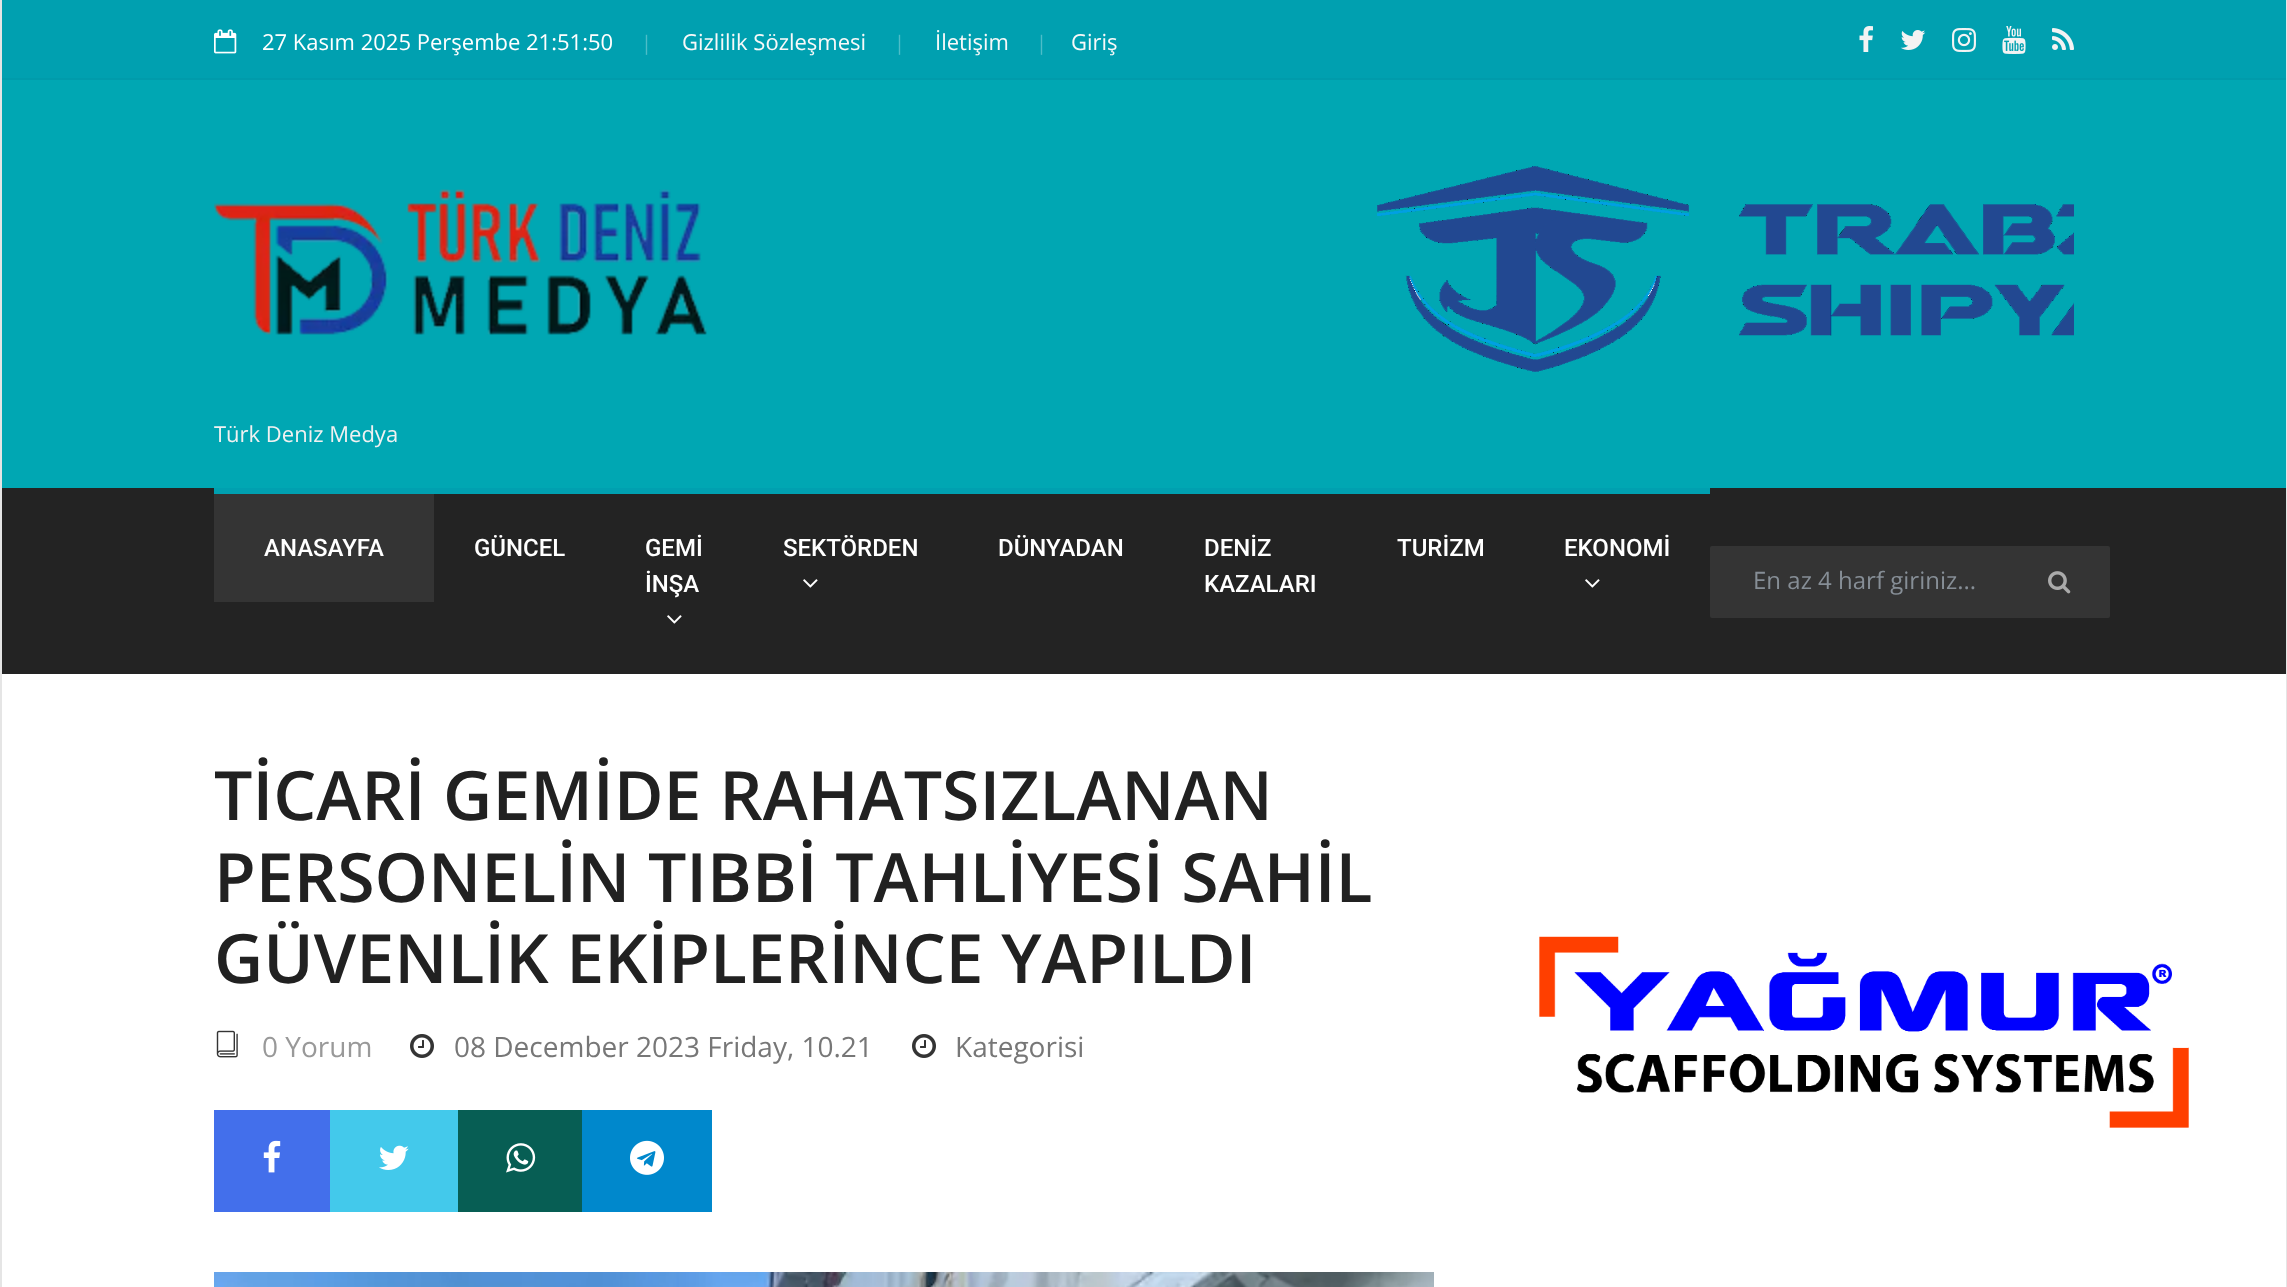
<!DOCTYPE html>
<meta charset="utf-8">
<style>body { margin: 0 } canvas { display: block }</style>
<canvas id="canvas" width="2287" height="1287"></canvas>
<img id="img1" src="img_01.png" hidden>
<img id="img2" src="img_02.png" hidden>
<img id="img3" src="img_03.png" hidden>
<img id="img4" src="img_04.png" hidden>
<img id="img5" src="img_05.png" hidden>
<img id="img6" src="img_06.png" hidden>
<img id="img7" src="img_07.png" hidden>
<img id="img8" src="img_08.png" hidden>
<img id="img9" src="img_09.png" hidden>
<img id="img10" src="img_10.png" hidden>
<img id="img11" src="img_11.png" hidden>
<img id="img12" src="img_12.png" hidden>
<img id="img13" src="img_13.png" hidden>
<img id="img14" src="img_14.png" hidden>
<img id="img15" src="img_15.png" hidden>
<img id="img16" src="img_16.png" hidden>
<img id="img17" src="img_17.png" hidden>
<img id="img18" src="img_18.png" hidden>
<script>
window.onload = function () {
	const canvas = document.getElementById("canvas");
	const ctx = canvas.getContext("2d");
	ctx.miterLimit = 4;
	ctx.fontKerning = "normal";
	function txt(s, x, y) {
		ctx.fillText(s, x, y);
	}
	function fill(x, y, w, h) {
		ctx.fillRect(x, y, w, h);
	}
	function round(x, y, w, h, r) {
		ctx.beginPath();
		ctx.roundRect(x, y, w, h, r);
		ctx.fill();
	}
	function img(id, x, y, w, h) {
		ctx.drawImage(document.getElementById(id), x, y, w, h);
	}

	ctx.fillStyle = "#FFFFFF";
	fill(0, 0, 2287, 1287);
	ctx.fillStyle = "#E5E5E5";
	fill(2286, 0, 1, 1287);
	fill(0, 0, 2, 1287);
	ctx.fillStyle = "#00A0B0";
	fill(2, 0, 2284, 78);
	ctx.fillStyle = "#009BAB";
	fill(2, 78, 2284, 2);
	img("img1", 214, 29, 23, 25);
	img("img2", 1859, 26, 14, 26);
	img("img3", 1900, 30, 26, 20);
	img("img4", 1952, 28, 24, 24);
	img("img5", 2002, 26, 24, 28);
	img("img6", 2052, 28, 22, 22);
	ctx.fillStyle = "#00A7B3";
	fill(2, 80, 2284, 408);
	img("img7", 1377, 166, 697, 206);
	img("img8", 214, 189, 493, 146);
	ctx.fillStyle = "#232323";
	fill(2, 488, 2284, 186);
	ctx.fillStyle = "#343434";
	fill(214, 494, 220, 108);
	ctx.fillStyle = "#00A0B0";
	fill(214, 488, 1496, 6);
	img("img9", 667, 615, 15, 9);
	img("img9", 803, 579, 15, 9);
	img("img9", 1585, 579, 15, 9);
	ctx.fillStyle = "#343434";
	round(1710, 546, 400, 72, 2);
	img("img10", 2048, 571, 23, 23);
	img("img11", 216, 1030, 22, 28);
	img("img12", 410, 1034, 24, 24);
	img("img12", 912, 1034, 24, 24);
	ctx.fillStyle = "#436FEB";
	fill(214, 1110, 116, 102);
	img("img13", 263, 1140, 18, 33);
	ctx.fillStyle = "#43C9EB";
	fill(330, 1110, 128, 102);
	img("img14", 379, 1145, 30, 25);
	ctx.fillStyle = "#075E54";
	fill(458, 1110, 124, 102);
	img("img15", 506, 1143, 30, 30);
	ctx.fillStyle = "#0088CC";
	fill(582, 1110, 130, 102);
	img("img16", 630, 1140, 34, 35);
	img("img17", 214, 1272, 1220, 15);
	img("img18", 1539, 936, 650, 192);
	ctx.font = "22px Open Sans";
	ctx.fillStyle = "#FFFFFF";
	txt("27 Kasım 2025 Perşembe 21:51:50", 262, 50);
	ctx.font = "20px Open Sans";
	ctx.fillStyle = "#4DBDC8";
	txt("|", 641, 50);
	ctx.font = "22px Open Sans";
	ctx.fillStyle = "#F9F9F9";
	txt("Gizlilik Sözleşmesi", 682, 50);
	ctx.font = "20px Open Sans";
	ctx.fillStyle = "#4DBDC8";
	txt("|", 894, 50);
	ctx.font = "22px Open Sans";
	ctx.fillStyle = "#F9F9F9";
	txt("İletişim", 935, 50);
	ctx.font = "20px Open Sans";
	ctx.fillStyle = "#4DBDC8";
	txt("|", 1036, 50);
	ctx.font = "22px Open Sans";
	ctx.fillStyle = "#F9F9F9";
	txt("Giriş", 1071, 50);
	ctx.fillStyle = "#F1F1F1";
	txt("Türk Deniz Medya", 214, 442);
	ctx.font = "500 24px Roboto";
	ctx.fillStyle = "#FFFFFF";
	txt("ANASAYFA", 264, 556);
	txt("GÜNCEL", 474, 556);
	txt("GEMİ", 645, 556);
	txt("İNŞA", 645, 592);
	txt("SEKTÖRDEN", 783, 556);
	txt("DÜNYADAN", 998, 556);
	txt("DENİZ", 1204, 556);
	txt("KAZALARI", 1204, 592);
	txt("TURİZM", 1397, 556);
	txt("EKONOMİ", 1564, 556);
	ctx.font = "24px Open Sans";
	ctx.fillStyle = "#868E96";
	txt("En az 4 harf giriniz...", 1753, 589);
	ctx.font = "600 68px Open Sans";
	ctx.fillStyle = "#212121";
	txt("TİCARİ GEMİDE RAHATSIZLANAN", 214, 820);
	txt("PERSONELİN TIBBİ TAHLİYESİ SAHİL", 214, 902);
	txt("GÜVENLİK EKİPLERİNCE YAPILDI", 214, 983);
	ctx.font = "28px Open Sans";
	ctx.fillStyle = "#999999";
	txt("0 Yorum", 262, 1057);
	ctx.fillStyle = "#777777";
	txt("08 December 2023 Friday, 10.21", 454, 1057);
	txt("Kategorisi", 955, 1057);
};
</script>
